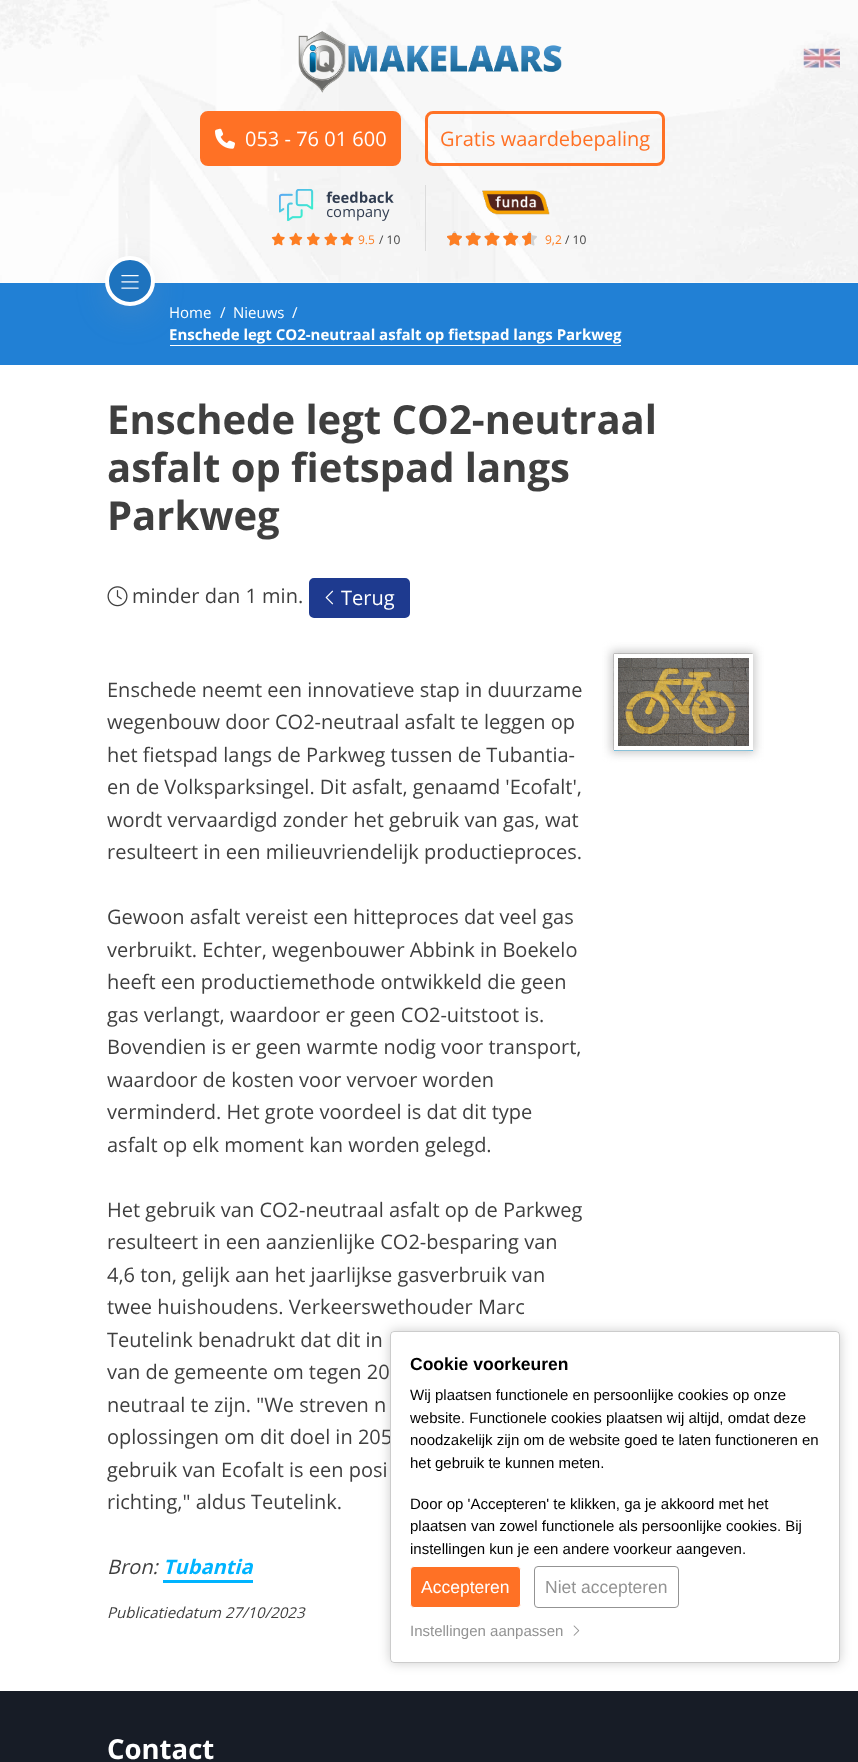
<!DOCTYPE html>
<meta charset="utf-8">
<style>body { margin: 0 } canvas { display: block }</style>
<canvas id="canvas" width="858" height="1762"></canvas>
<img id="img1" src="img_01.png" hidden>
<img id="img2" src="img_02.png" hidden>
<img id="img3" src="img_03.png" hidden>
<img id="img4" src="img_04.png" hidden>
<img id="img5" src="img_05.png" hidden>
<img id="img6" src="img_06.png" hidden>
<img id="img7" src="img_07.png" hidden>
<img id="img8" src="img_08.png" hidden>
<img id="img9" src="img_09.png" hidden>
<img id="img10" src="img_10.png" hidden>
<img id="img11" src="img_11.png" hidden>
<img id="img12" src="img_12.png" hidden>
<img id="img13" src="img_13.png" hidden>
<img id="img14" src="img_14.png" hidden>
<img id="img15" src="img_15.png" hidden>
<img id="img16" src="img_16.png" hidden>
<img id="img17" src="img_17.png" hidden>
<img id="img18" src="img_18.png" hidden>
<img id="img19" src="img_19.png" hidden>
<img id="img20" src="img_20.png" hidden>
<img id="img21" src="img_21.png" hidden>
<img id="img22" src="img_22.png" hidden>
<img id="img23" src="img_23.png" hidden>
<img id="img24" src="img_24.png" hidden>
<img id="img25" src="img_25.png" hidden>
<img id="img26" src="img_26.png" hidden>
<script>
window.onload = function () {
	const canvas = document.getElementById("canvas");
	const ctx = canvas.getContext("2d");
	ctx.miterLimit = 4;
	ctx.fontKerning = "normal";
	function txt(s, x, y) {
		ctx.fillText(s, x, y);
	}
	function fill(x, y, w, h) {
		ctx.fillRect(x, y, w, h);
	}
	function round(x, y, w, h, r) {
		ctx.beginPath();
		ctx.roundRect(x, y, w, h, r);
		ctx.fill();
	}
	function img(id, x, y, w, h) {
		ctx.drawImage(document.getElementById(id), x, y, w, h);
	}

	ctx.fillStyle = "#FFFFFF";
	fill(0, 0, 858, 1762);
	img("img1", 0, 0, 858, 283);
	img("img2", 803, 48, 37, 20);
	img("img3", 298, 31, 264, 62);
	ctx.fillStyle = "#FF7125";
	ctx.beginPath();
	ctx.roundRect(201.5, 112.5, 198, 52, 6.5);
	ctx.fill();
	ctx.strokeStyle = "#FF7125";
	ctx.lineWidth = 3;
	ctx.stroke();
	img("img4", 215, 128, 20, 21);
	ctx.beginPath();
	ctx.roundRect(426.5, 112.5, 237, 52, 6.5);
	ctx.stroke();
	img("img5", 279, 189, 115, 32);
	img("img6", 271, 232, 14, 14);
	img("img7", 289, 232, 14, 14);
	img("img8", 306, 232, 14, 14);
	img("img9", 324, 232, 14, 14);
	img("img10", 340, 232, 14, 14);
	ctx.fillStyle = "#DCDCDC";
	fill(425, 185, 1, 66);
	img("img11", 482, 190, 68, 25);
	img("img12", 447, 231, 15, 15);
	img("img13", 465, 231, 16, 15);
	img("img14", 484, 231, 16, 15);
	img("img15", 503, 231, 16, 15);
	img("img16", 522, 231, 15, 15);
	img("img17", 447, 233, 15, 13);
	img("img18", 465, 233, 16, 13);
	img("img19", 484, 233, 16, 13);
	img("img20", 503, 233, 16, 13);
	img("img21", 522, 233, 9, 13);
	ctx.fillStyle = "#2180D5";
	fill(0, 283, 858, 82);
	ctx.fillStyle = "#FFFFFF";
	fill(170, 345, 451, 1);
	ctx.fillStyle = "rgba(149, 157, 165, 0.2)";
	ctx.filter = "blur(15px)";
	ctx.beginPath();
	ctx.roundRect(105, 266, 50, 50, 25);
	ctx.fill();
	ctx.filter = "none";
	ctx.fillStyle = "#1E73BE";
	ctx.beginPath();
	ctx.arc(130, 281, 23, 0, Math.PI * 2);
	ctx.fill();
	ctx.strokeStyle = "#FFFFFF";
	ctx.lineWidth = 4;
	ctx.stroke();
	img("img22", 121, 275, 18, 14);
	img("img23", 107, 586, 21, 21);
	ctx.fillStyle = "#1E3A8F";
	ctx.beginPath();
	ctx.roundRect(310.5, 579.5, 98, 37, 3.5);
	ctx.fill();
	ctx.strokeStyle = "#1E3A8F";
	ctx.lineWidth = 3;
	ctx.stroke();
	img("img24", 325, 590, 9, 15);
	ctx.fillStyle = "#00B4FF";
	fill(163, 1580, 90, 3);
	fill(614, 750, 139, 1);
	ctx.fillStyle = "#C7C7C7";
	ctx.filter = "blur(5px)";
	ctx.beginPath();
	ctx.rect(611, 651, 144, 102);
	ctx.fill();
	ctx.filter = "none";
	img("img25", 613, 653, 140, 97);
	ctx.strokeStyle = "#FFFFFF";
	ctx.lineWidth = 4;
	ctx.strokeRect(616, 656, 135, 92);
	ctx.fillStyle = "#171C26";
	fill(0, 1691, 858, 71);
	ctx.fillStyle = "rgba(0, 0, 0, 0.2)";
	ctx.filter = "blur(6px)";
	ctx.beginPath();
	ctx.roundRect(390, 1331, 450, 332, 4);
	ctx.fill();
	ctx.filter = "none";
	ctx.font = "20px Open Sans";
	ctx.fillStyle = "#FFFFFF";
	txt("053 - 76 01 600", 245, 146);
	ctx.fillStyle = "#FF7125";
	txt("Gratis waardebepaling", 440, 146);
	ctx.font = "12px Open Sans";
	ctx.fillStyle = "#FD7E23";
	txt("9.5", 358, 244);
	ctx.fillStyle = "#3F3F3F";
	txt("/ 10", 379, 244);
	ctx.fillStyle = "#FD7E23";
	txt("9,2", 545, 244);
	ctx.fillStyle = "#3F3F3F";
	txt("/ 10", 565, 244);
	ctx.font = "15px Open Sans";
	ctx.fillStyle = "#FFFFFF";
	txt("Home", 169, 318);
	txt("/", 220, 318);
	txt("Nieuws", 233, 318);
	txt("/", 292, 318);
	ctx.font = "bold 15px Open Sans";
	txt("Enschede legt CO2-neutraal asfalt op fietspad langs Parkweg", 169, 340);
	ctx.font = "bold 40px Open Sans";
	ctx.fillStyle = "#3F3F3F";
	txt("Enschede legt CO2-neutraal", 107, 434);
	txt("asfalt op fietspad langs", 107, 482);
	txt("Parkweg", 107, 530);
	ctx.font = "20px Open Sans";
	txt("minder dan 1 min.", 132, 603);
	ctx.fillStyle = "#FFFFFF";
	txt("Terug", 341, 605);
	ctx.fillStyle = "#3F3F3F";
	txt("Enschede neemt een innovatieve stap in duurzame", 107, 697);
	txt("wegenbouw door CO2-neutraal asfalt te leggen op", 107, 729);
	txt("het fietspad langs de Parkweg tussen de Tubantia-", 107, 762);
	txt("en de Volksparksingel. Dit asfalt, genaamd 'Ecofalt',", 107, 794);
	txt("wordt vervaardigd zonder het gebruik van gas, wat", 107, 827);
	txt("resulteert in een milieuvriendelijk productieproces.", 107, 859);
	txt("Gewoon asfalt vereist een hitteproces dat veel gas", 107, 924);
	txt("verbruikt. Echter, wegenbouwer Abbink in Boekelo", 107, 957);
	txt("heeft een productiemethode ontwikkeld die geen", 107, 989);
	txt("gas verlangt, waardoor er geen CO2-uitstoot is.", 107, 1022);
	txt("Bovendien is er geen warmte nodig voor transport,", 107, 1054);
	txt("waardoor de kosten voor vervoer worden", 107, 1087);
	txt("verminderd. Het grote voordeel is dat dit type", 107, 1119);
	txt("asfalt op elk moment kan worden gelegd.", 107, 1152);
	txt("Het gebruik van CO2-neutraal asfalt op de Parkweg", 107, 1217);
	txt("resulteert in een aanzienlijke CO2-besparing van", 107, 1249);
	txt("4,6 ton, gelijk aan het jaarlijkse gasverbruik van", 107, 1282);
	txt("twee huishoudens. Verkeerswethouder Marc", 107, 1314);
	txt("Teutelink benadrukt dat dit in", 107, 1347);
	txt("van de gemeente om tegen 20", 107, 1379);
	txt("neutraal te zijn. \"We streven n", 107, 1412);
	txt("oplossingen om dit doel in 205", 107, 1444);
	txt("gebruik van Ecofalt is een posi", 107, 1477);
	txt("richting,\" aldus Teutelink.", 107, 1509);
	ctx.font = "italic 20px Open Sans";
	txt("Bron:", 107, 1574);
	ctx.font = "italic bold 20px Open Sans";
	ctx.fillStyle = "#00B4FF";
	txt("Tubantia", 163, 1574);
	ctx.font = "italic 15px Open Sans";
	ctx.fillStyle = "#3F3F3F";
	txt("Publicatiedatum 27/10/2023", 107, 1618);
	ctx.font = "bold 27.5px Open Sans";
	ctx.fillStyle = "#FFFFFF";
	txt("Contact", 107, 1759);
	round(390, 1331, 450, 332, 4);
	ctx.beginPath();
	ctx.roundRect(390.5, 1331.5, 449, 331, 3.5);
	ctx.strokeStyle = "rgba(0, 0, 0, 0.2)";
	ctx.lineWidth = 1;
	ctx.stroke();
	ctx.font = "bold 17.5px Liberation Sans";
	ctx.fillStyle = "#000000";
	txt("Cookie voorkeuren", 410, 1370);
	ctx.font = "15px Liberation Sans";
	txt("Wij plaatsen functionele en persoonlijke cookies op onze", 410, 1400);
	txt("website. Functionele cookies plaatsen wij altijd, omdat deze", 410, 1423);
	txt("noodzakelijk zijn om de website goed te laten functioneren en", 410, 1445);
	txt("het gebruik te kunnen meten.", 410, 1468);
	txt("Door op 'Accepteren' te klikken, ga je akkoord met het", 410, 1509);
	txt("plaatsen van zowel functionele als persoonlijke cookies. Bij", 410, 1531);
	txt("instellingen kun je een andere voorkeur aangeven.", 410, 1554);
	ctx.fillStyle = "#FF7125";
	ctx.beginPath();
	ctx.roundRect(410.5, 1566.5, 110, 41, 3.5);
	ctx.fill();
	ctx.strokeStyle = "#FFFFFF";
	ctx.stroke();
	ctx.font = "17.5px Liberation Sans";
	ctx.fillStyle = "#FFFFFF";
	txt("Accepteren", 421, 1593);
	ctx.beginPath();
	ctx.roundRect(534.5, 1566.5, 144, 41, 3.5);
	ctx.strokeStyle = "#939393";
	ctx.stroke();
	ctx.fillStyle = "#939393";
	txt("Niet accepteren", 545, 1593);
	ctx.font = "15px Liberation Sans";
	txt("Instellingen aanpassen", 410, 1636);
	img("img26", 573, 1625, 7, 11);
};
</script>
